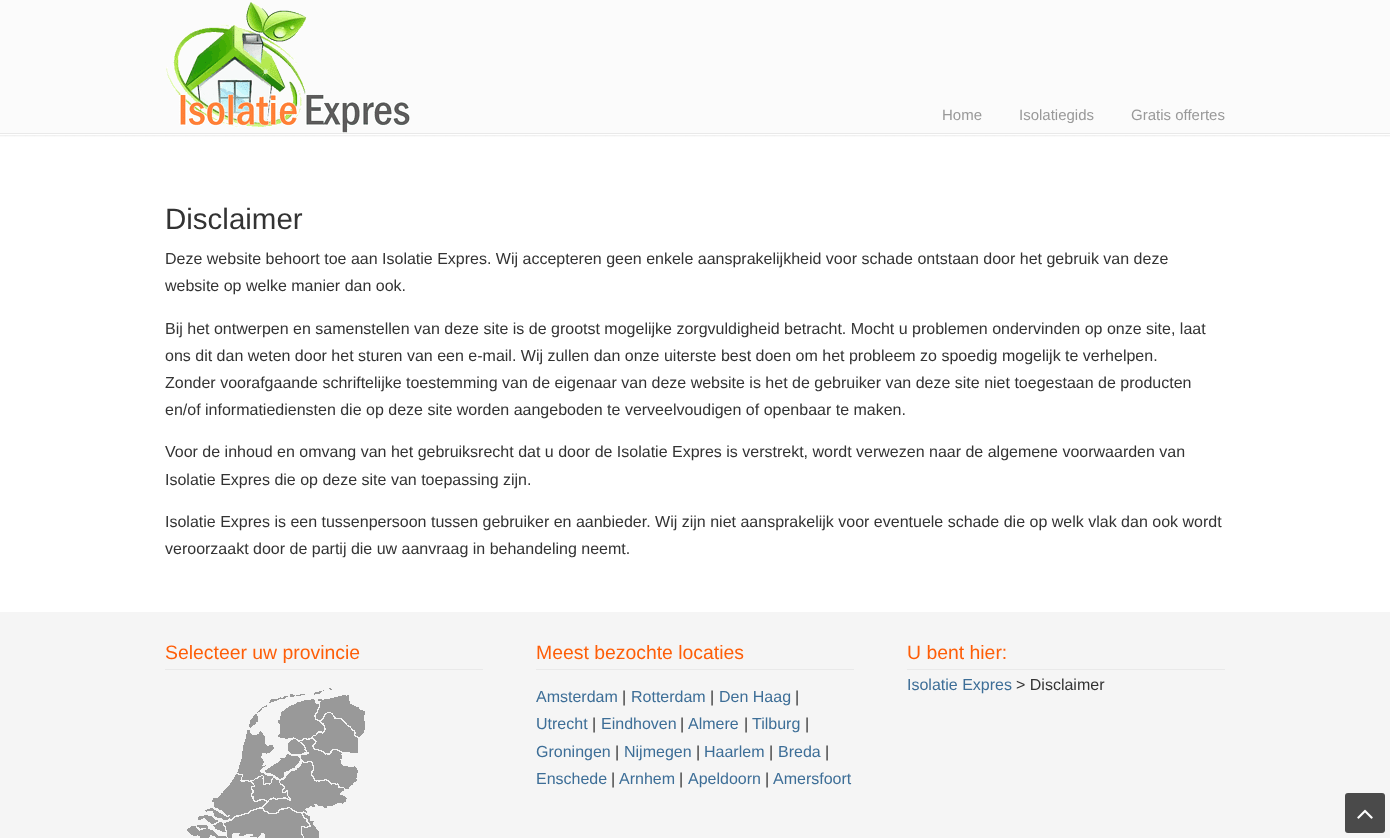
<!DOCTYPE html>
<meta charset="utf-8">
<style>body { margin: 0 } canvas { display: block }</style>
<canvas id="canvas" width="1390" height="838"></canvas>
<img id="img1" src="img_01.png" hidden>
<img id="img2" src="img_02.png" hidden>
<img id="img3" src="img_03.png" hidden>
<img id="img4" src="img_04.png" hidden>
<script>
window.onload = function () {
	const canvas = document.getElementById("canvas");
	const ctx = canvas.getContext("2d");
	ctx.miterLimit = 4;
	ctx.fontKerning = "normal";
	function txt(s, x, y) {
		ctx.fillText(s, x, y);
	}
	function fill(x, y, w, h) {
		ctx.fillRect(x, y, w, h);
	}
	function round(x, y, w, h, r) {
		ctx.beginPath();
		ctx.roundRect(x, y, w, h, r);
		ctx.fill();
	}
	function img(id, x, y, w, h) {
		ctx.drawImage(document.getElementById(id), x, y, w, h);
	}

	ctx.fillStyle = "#FBFBFB";
	fill(0, 0, 1390, 838);
	img("img1", 166, 2, 244, 131);
	ctx.fillStyle = "#E9E9E9";
	fill(0, 133, 1390, 1);
	ctx.fillStyle = "#FFFFFF";
	fill(0, 134, 1390, 478);
	img("img2", 0, 135, 1390, 2);
	ctx.fillStyle = "#F5F5F5";
	fill(0, 612, 1390, 226);
	ctx.fillStyle = "#E9E9E9";
	fill(165, 669, 318, 1);
	img("img3", 187, 688, 178, 150);
	fill(536, 669, 318, 1);
	fill(907, 669, 318, 1);
	ctx.fillStyle = "#4A4A4A";
	round(1345, 793, 40, 40, 3);
	img("img4", 1357, 809, 16, 10);
	ctx.font = "15px Liberation Sans";
	ctx.fillStyle = "#999999";
	txt("Home", 942, 120);
	txt("Isolatiegids", 1019, 120);
	txt("Gratis offertes", 1131, 120);
	ctx.font = "29.5px Liberation Sans";
	ctx.fillStyle = "#333333";
	txt("Disclaimer", 165, 229);
	ctx.font = "16px Liberation Sans";
	txt("Deze website behoort toe aan Isolatie Expres. Wij accepteren geen enkele aansprakelijkheid voor schade ontstaan door het gebruik van deze", 165, 264);
	txt("website op welke manier dan ook.", 165, 291);
	txt("Bij het ontwerpen en samenstellen van deze site is de grootst mogelijke zorgvuldigheid betracht. Mocht u problemen ondervinden op onze site, laat", 165, 334);
	txt("ons dit dan weten door het sturen van een e-mail. Wij zullen dan onze uiterste best doen om het probleem zo spoedig mogelijk te verhelpen.", 165, 361);
	txt("Zonder voorafgaande schriftelijke toestemming van de eigenaar van deze website is het de gebruiker van deze site niet toegestaan de producten", 165, 388);
	txt("en/of informatiediensten die op deze site worden aangeboden te verveelvoudigen of openbaar te maken.", 165, 415);
	txt("Voor de inhoud en omvang van het gebruiksrecht dat u door de Isolatie Expres is verstrekt, wordt verwezen naar de algemene voorwaarden van", 165, 457);
	txt("Isolatie Expres die op deze site van toepassing zijn.", 165, 485);
	txt("Isolatie Expres is een tussenpersoon tussen gebruiker en aanbieder. Wij zijn niet aansprakelijk voor eventuele schade die op welk vlak dan ook wordt", 165, 527);
	txt("veroorzaakt door de partij die uw aanvraag in behandeling neemt.", 165, 554);
	ctx.font = "19.4px Liberation Sans";
	ctx.fillStyle = "#FE5E08";
	txt("Selecteer uw provincie", 165, 659);
	txt("Meest bezochte locaties", 536, 659);
	ctx.font = "16px Liberation Sans";
	ctx.fillStyle = "#3D6E97";
	txt("Amsterdam", 536, 702);
	ctx.fillStyle = "#333333";
	txt("|", 622, 702);
	ctx.fillStyle = "#3D6E97";
	txt("Rotterdam", 631, 702);
	ctx.fillStyle = "#333333";
	txt("|", 710, 702);
	ctx.fillStyle = "#3D6E97";
	txt("Den Haag", 719, 702);
	ctx.fillStyle = "#333333";
	txt("|", 795, 702);
	ctx.fillStyle = "#3D6E97";
	txt("Utrecht", 536, 729);
	ctx.fillStyle = "#333333";
	txt("|", 592, 729);
	ctx.fillStyle = "#3D6E97";
	txt("Eindhoven", 601, 729);
	ctx.fillStyle = "#333333";
	txt("|", 680, 729);
	ctx.fillStyle = "#3D6E97";
	txt("Almere", 688, 729);
	ctx.fillStyle = "#333333";
	txt("|", 744, 729);
	ctx.fillStyle = "#3D6E97";
	txt("Tilburg", 752, 729);
	ctx.fillStyle = "#333333";
	txt("|", 805, 729);
	ctx.fillStyle = "#3D6E97";
	txt("Groningen", 536, 757);
	ctx.fillStyle = "#333333";
	txt("|", 615, 757);
	ctx.fillStyle = "#3D6E97";
	txt("Nijmegen", 624, 757);
	ctx.fillStyle = "#333333";
	txt("|", 696, 757);
	ctx.fillStyle = "#3D6E97";
	txt("Haarlem", 704, 757);
	ctx.fillStyle = "#333333";
	txt("|", 769, 757);
	ctx.fillStyle = "#3D6E97";
	txt("Breda", 778, 757);
	ctx.fillStyle = "#333333";
	txt("|", 825, 757);
	ctx.fillStyle = "#3D6E97";
	txt("Enschede", 536, 784);
	ctx.fillStyle = "#333333";
	txt("|", 611, 784);
	ctx.fillStyle = "#3D6E97";
	txt("Arnhem", 619, 784);
	ctx.fillStyle = "#333333";
	txt("|", 679, 784);
	ctx.fillStyle = "#3D6E97";
	txt("Apeldoorn", 688, 784);
	ctx.fillStyle = "#333333";
	txt("|", 765, 784);
	ctx.fillStyle = "#3D6E97";
	txt("Amersfoort", 773, 784);
	ctx.font = "19.4px Liberation Sans";
	ctx.fillStyle = "#FE5E08";
	txt("U bent hier:", 907, 659);
	ctx.font = "16px Liberation Sans";
	ctx.fillStyle = "#3D6E97";
	txt("Isolatie Expres", 907, 690);
	ctx.fillStyle = "#333333";
	txt("> Disclaimer", 1016, 690);
};
</script>
